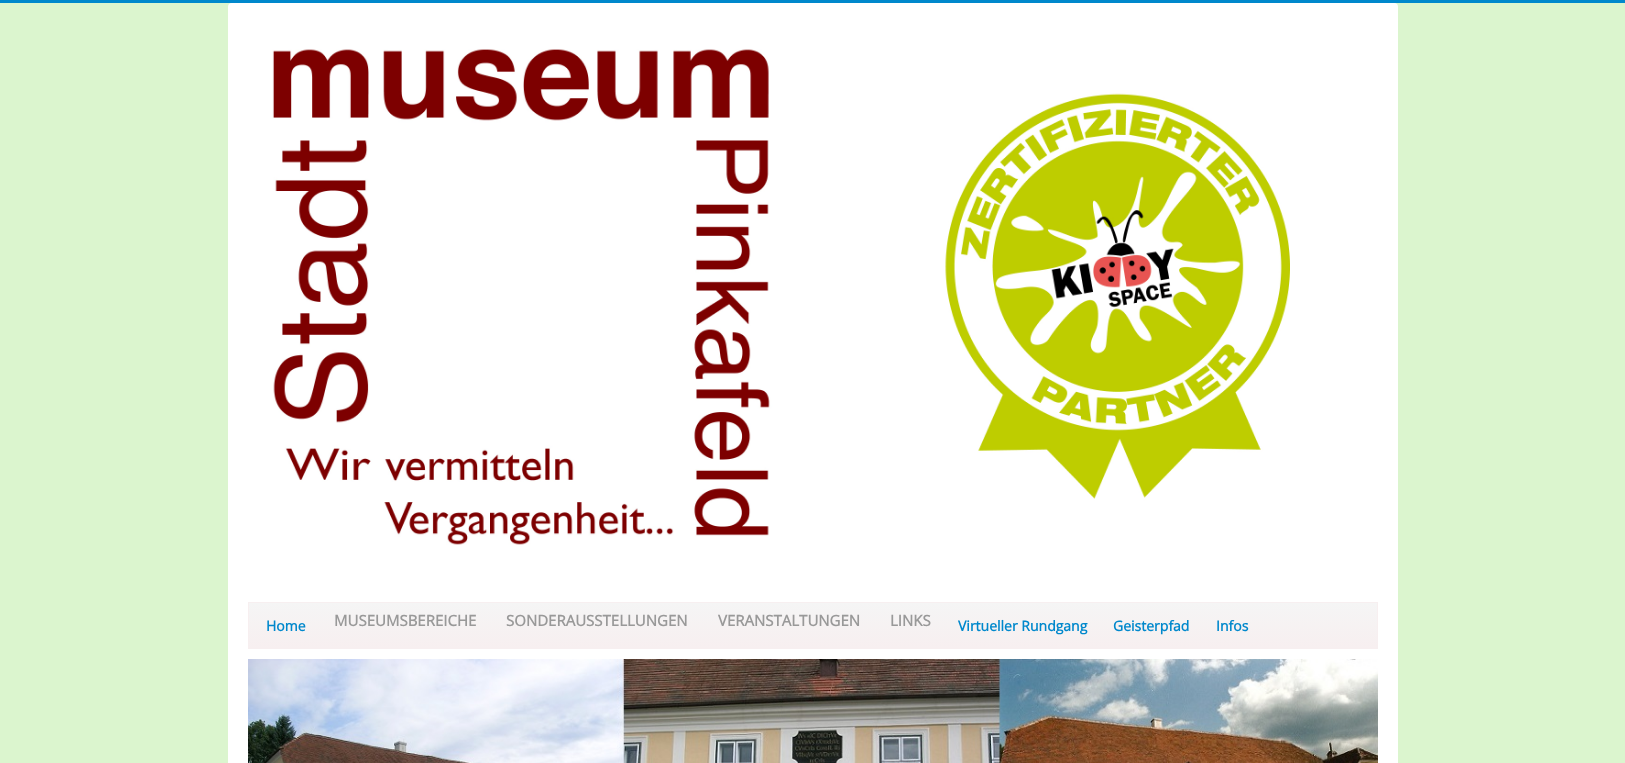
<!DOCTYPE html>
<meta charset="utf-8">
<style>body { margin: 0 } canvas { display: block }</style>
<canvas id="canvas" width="1625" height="763"></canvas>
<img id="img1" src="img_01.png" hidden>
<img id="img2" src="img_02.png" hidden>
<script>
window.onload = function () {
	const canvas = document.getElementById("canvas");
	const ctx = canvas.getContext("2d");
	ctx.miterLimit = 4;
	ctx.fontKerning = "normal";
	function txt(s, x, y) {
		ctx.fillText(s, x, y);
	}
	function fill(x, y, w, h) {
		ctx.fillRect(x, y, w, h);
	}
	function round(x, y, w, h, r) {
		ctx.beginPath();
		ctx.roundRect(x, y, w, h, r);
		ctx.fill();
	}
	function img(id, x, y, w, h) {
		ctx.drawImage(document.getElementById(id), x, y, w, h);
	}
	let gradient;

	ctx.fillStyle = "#DBF5CE";
	fill(0, 0, 1625, 763);
	ctx.fillStyle = "#0088CC";
	fill(0, 0, 1625, 3);
	ctx.fillStyle = "#FFFFFF";
	round(228, 3, 1170, 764, 4);
	img("img1", 272, 49, 1018, 496);
	gradient = ctx.createLinearGradient(813, 603, 813, 648);
	gradient.addColorStop(0, "#F5F5F5");
	gradient.addColorStop(1, "#F7EFF0");
	ctx.fillStyle = gradient;
	fill(249, 603, 1128, 45);
	ctx.strokeStyle = "#F7EFF0";
	ctx.strokeRect(248.5, 602.5, 1129, 46);
	img("img2", 248, 659, 1130, 104);
	ctx.font = "bold 14px Open Sans";
	ctx.fillStyle = "#0088CC";
	txt("Home", 266, 631);
	ctx.font = "bold 15px Open Sans";
	ctx.fillStyle = "#999999";
	txt("MUSEUMSBEREICHE", 334, 626);
	txt("SONDERAUSSTELLUNGEN", 506, 626);
	txt("VERANSTALTUNGEN", 718, 626);
	txt("LINKS", 890, 626);
	ctx.font = "bold 14px Open Sans";
	ctx.fillStyle = "#0088CC";
	txt("Virtueller Rundgang", 958, 631);
	txt("Geisterpfad", 1113, 631);
	txt("Infos", 1216, 631);
};
</script>
